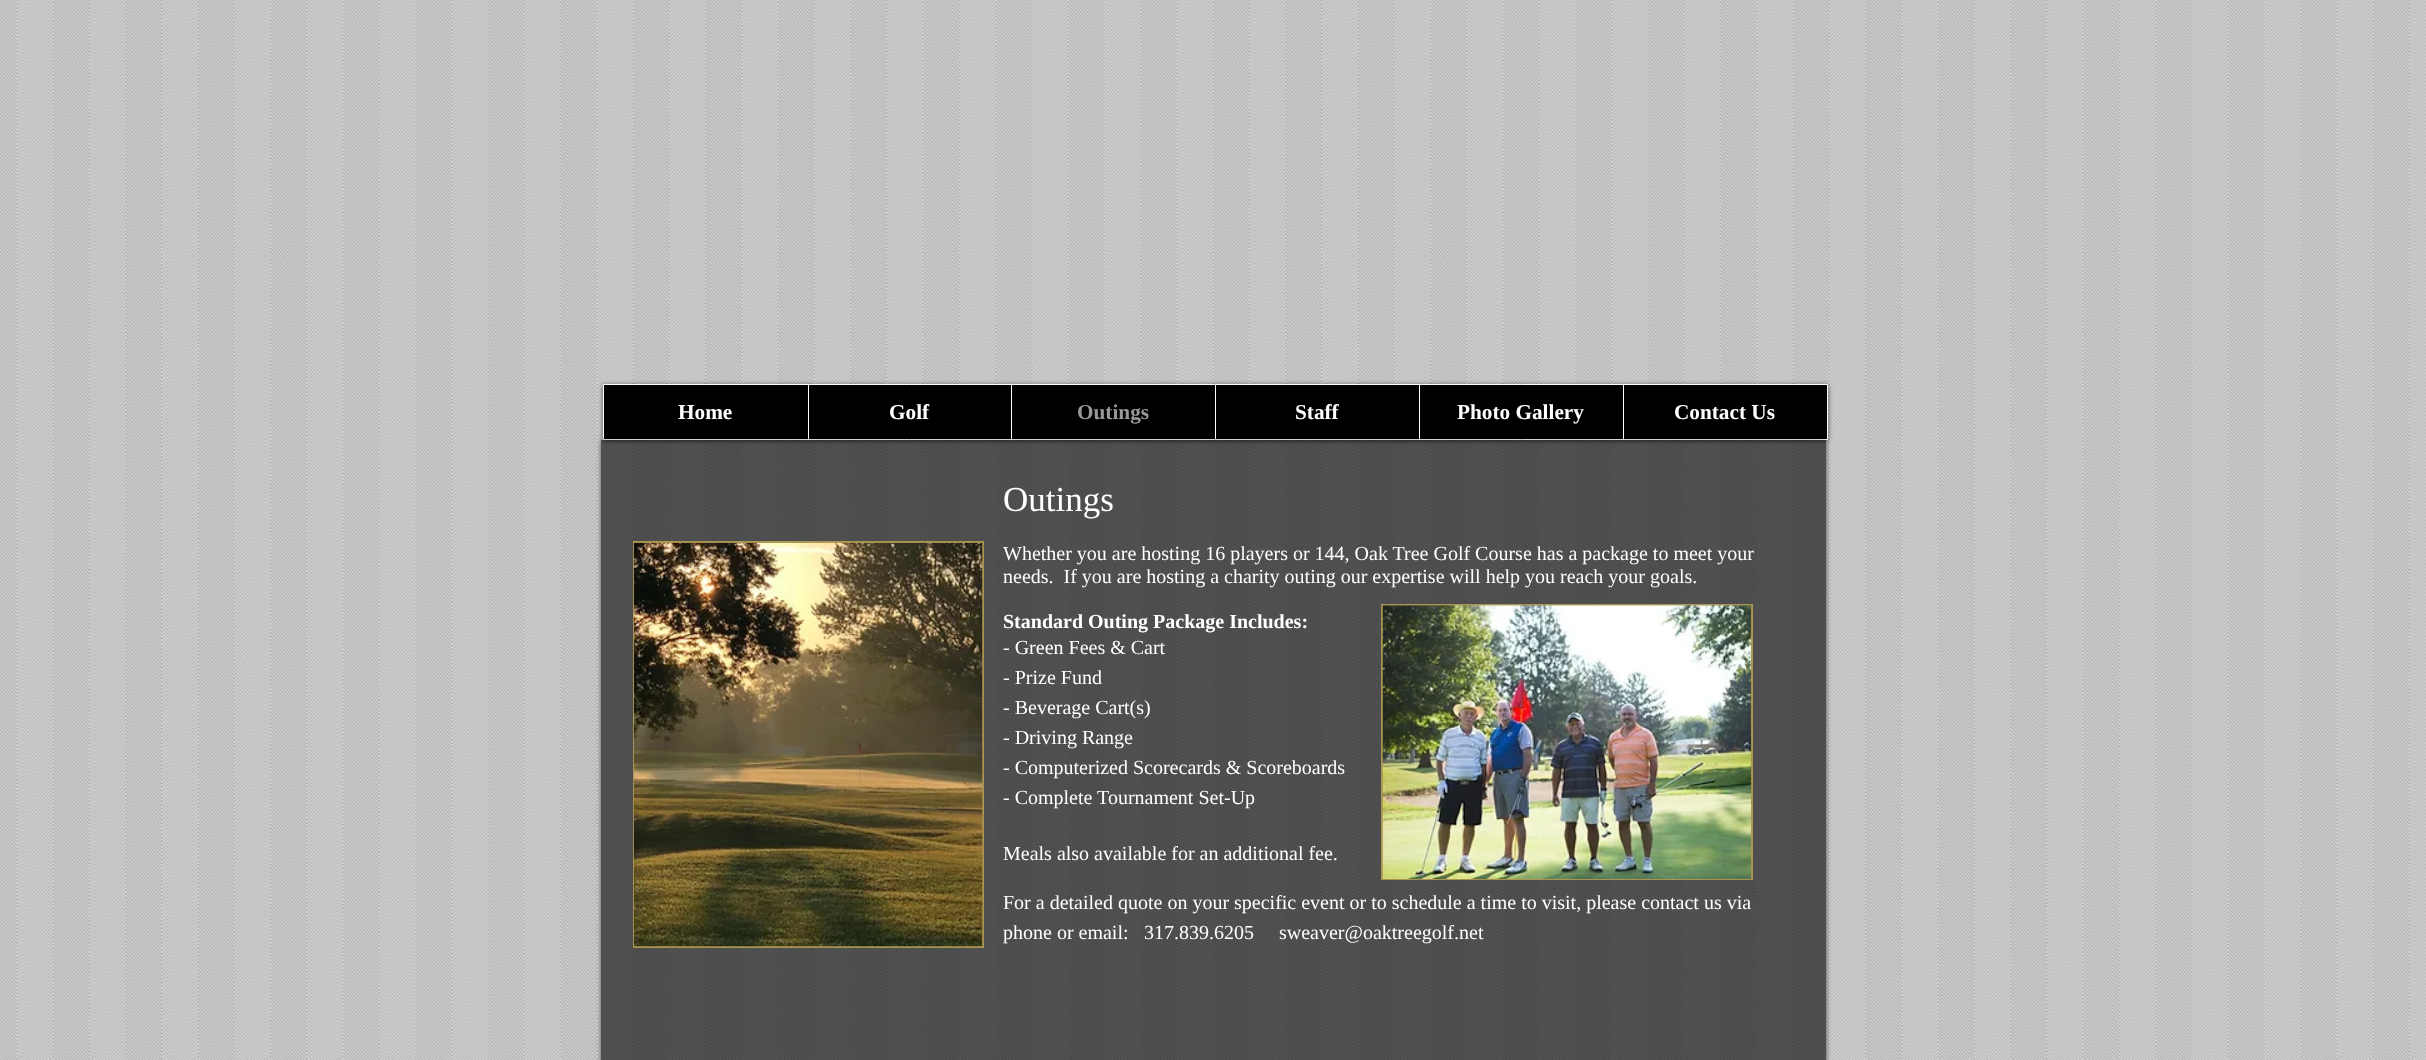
<!DOCTYPE html>
<meta charset="utf-8">
<style>body { margin: 0 } canvas { display: block }</style>
<canvas id="canvas" width="2426" height="1060"></canvas>
<img id="img1" src="img_01.png" hidden>
<img id="img2" src="img_02.png" hidden>
<img id="img3" src="img_03.png" hidden>
<script>
window.onload = function () {
	const canvas = document.getElementById("canvas");
	const ctx = canvas.getContext("2d");
	ctx.miterLimit = 4;
	ctx.fontKerning = "normal";
	function txt(s, x, y) {
		ctx.fillText(s, x, y);
	}
	function fill(x, y, w, h) {
		ctx.fillRect(x, y, w, h);
	}
	function img(id, x, y, w, h) {
		ctx.drawImage(document.getElementById(id), x, y, w, h);
	}

	ctx.fillStyle = "#E2E2E2";
	fill(0, 0, 2426, 1060);
	img("img1", 0, 0, 2426, 1060);
	ctx.fillStyle = "rgba(0, 0, 0, 0.6)";
	ctx.filter = "blur(2.5px)";
	ctx.beginPath();
	ctx.rect(603, 385, 1225, 56);
	ctx.fill();
	ctx.filter = "none";
	ctx.fillStyle = "#000000";
	ctx.beginPath();
	ctx.rect(603.5, 384.5, 1224, 55);
	ctx.fill();
	ctx.strokeStyle = "#FFFFFF";
	ctx.stroke();
	ctx.fillStyle = "#FFFFFF";
	fill(808, 385, 1, 54);
	fill(1011, 385, 1, 54);
	fill(1215, 385, 1, 54);
	fill(1419, 385, 1, 54);
	fill(1623, 385, 1, 54);
	ctx.save();
	ctx.beginPath();
	ctx.moveTo(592, 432);
	ctx.lineTo(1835, 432);
	ctx.lineTo(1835, 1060);
	ctx.lineTo(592, 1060);
	ctx.closePath();
	ctx.moveTo(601, 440);
	ctx.lineTo(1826, 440);
	ctx.lineTo(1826, 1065);
	ctx.lineTo(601, 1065);
	ctx.closePath();
	ctx.clip("evenodd");
	ctx.fillStyle = "rgba(0, 0, 0, 0.6)";
	ctx.filter = "blur(2.5px)";
	ctx.beginPath();
	ctx.rect(601, 441, 1225, 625);
	ctx.fill();
	ctx.filter = "none";
	ctx.restore();
	ctx.fillStyle = "rgba(0, 0, 0, 0.6)";
	fill(601, 440, 1225, 620);
	ctx.fillStyle = "#AA9550";
	fill(633, 541, 351, 407);
	img("img2", 633, 542, 350, 405);
	fill(1381, 604, 372, 276);
	img("img3", 1382, 605, 370, 274);
	ctx.font = "bold 21.25px Liberation Serif";
	ctx.fillStyle = "#FFFFFF";
	txt("Home", 678, 419);
	txt("Golf", 889, 419);
	ctx.fillStyle = "#999999";
	txt("Outings", 1077, 419);
	ctx.fillStyle = "#FFFFFF";
	txt("Staff", 1295, 419);
	txt("Photo Gallery", 1457, 419);
	txt("Contact Us", 1674, 419);
	ctx.font = "35px Liberation Serif";
	txt("Outings", 1003, 511);
	ctx.font = "20px Liberation Serif";
	txt("Whether you are hosting 16 players or 144, Oak Tree Golf Course has a package to meet your", 1003, 560);
	txt("needs.  If you are hosting a charity outing our expertise will help you reach your goals.", 1003, 583);
	ctx.font = "bold 20px Liberation Serif";
	txt("Standard Outing Package Includes:", 1003, 628);
	ctx.font = "20px Liberation Serif";
	txt("- Green Fees & Cart", 1003, 654);
	txt("- Prize Fund", 1003, 684);
	txt("- Beverage Cart(s)", 1003, 714);
	txt("- Driving Range", 1003, 744);
	txt("- Computerized Scorecards & Scoreboards", 1003, 774);
	txt("- Complete Tournament Set-Up", 1003, 804);
	txt("Meals also available for an additional fee.", 1003, 860);
	txt("For a detailed quote on your specific event or to schedule a time to visit, please contact us via", 1003, 909);
	txt("phone or email:", 1003, 939);
	txt("317.839.6205", 1144, 939);
	txt("sweaver@oaktreegolf.net", 1279, 939);
};
</script>
